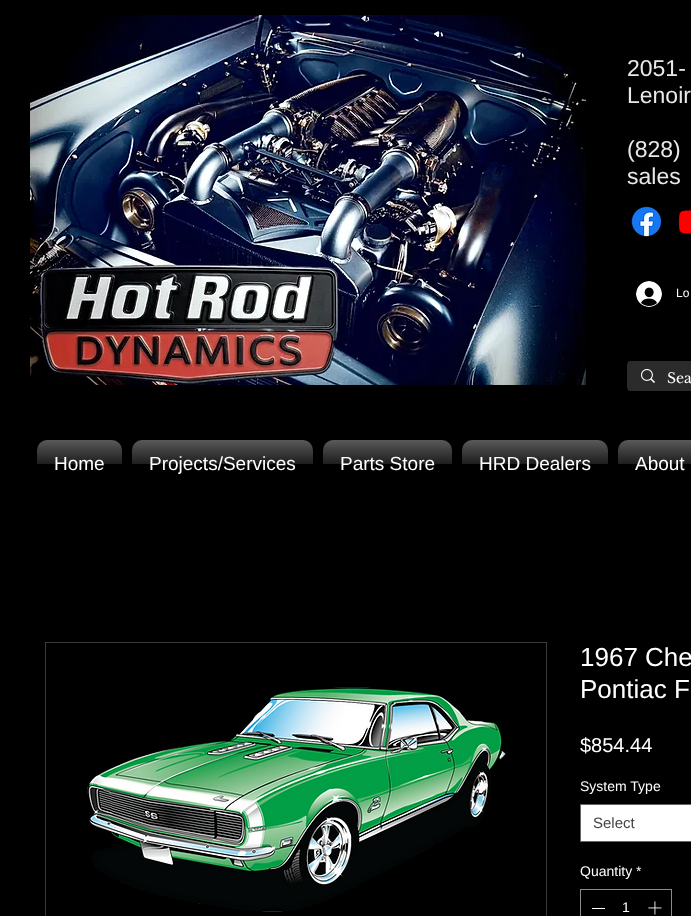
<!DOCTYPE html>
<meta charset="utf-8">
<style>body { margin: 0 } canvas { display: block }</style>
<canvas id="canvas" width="691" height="916"></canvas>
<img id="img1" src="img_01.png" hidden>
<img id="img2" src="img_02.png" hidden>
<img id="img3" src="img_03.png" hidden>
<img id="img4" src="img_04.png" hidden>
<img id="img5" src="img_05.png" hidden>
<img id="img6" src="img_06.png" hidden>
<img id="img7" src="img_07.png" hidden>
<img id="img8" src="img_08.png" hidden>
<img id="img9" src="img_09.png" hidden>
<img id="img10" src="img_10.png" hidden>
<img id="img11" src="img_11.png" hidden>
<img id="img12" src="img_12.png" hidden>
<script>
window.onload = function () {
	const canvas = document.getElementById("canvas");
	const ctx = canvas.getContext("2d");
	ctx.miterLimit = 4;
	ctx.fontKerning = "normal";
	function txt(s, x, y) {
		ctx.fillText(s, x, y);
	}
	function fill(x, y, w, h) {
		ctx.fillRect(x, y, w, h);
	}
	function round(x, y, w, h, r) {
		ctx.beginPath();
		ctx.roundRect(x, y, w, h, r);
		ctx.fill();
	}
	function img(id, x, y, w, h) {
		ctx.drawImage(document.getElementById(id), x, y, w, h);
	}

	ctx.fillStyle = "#000000";
	fill(0, 0, 691, 916);
	img("img1", 30, 15, 556, 370);
	img("img2", 631, 206, 31, 31);
	img("img3", 678, 210, 13, 24);
	img("img4", 636, 281, 26, 26);
	ctx.fillStyle = "#2B2B2B";
	round(627, 361, 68, 30, 4);
	img("img5", 641, 369, 14, 14);
	img("img6", 37, 440, 85, 24);
	img("img7", 132, 440, 181, 24);
	img("img8", 323, 440, 129, 24);
	img("img9", 462, 440, 146, 24);
	img("img10", 618, 440, 73, 24);
	ctx.strokeStyle = "#3A3A3A";
	ctx.strokeRect(45.5, 642.5, 501, 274);
	img("img11", 87, 687, 419, 225);
	ctx.fillStyle = "#FFFFFF";
	ctx.beginPath();
	ctx.rect(580.5, 804.5, 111, 37);
	ctx.fill();
	ctx.strokeStyle = "#666666";
	ctx.stroke();
	ctx.strokeStyle = "#8B8B8B";
	ctx.strokeRect(580.5, 889.5, 91, 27);
	fill(592, 908, 13, 1);
	img("img12", 648, 901, 14, 14);
	ctx.font = "23px Liberation Sans";
	ctx.fillStyle = "#E8E8E8";
	txt("2051-", 627, 76);
	txt("Lenoir", 627, 103);
	txt("(828)", 627, 157);
	txt("sales", 627, 184);
	ctx.font = "12px Liberation Sans";
	ctx.fillStyle = "#FFFFFF";
	txt("Lo", 676, 297);
	ctx.font = "14px Libre Baskerville";
	txt("Sea", 667, 383);
	ctx.font = "19px Liberation Sans";
	txt("Home", 54, 470);
	txt("Projects/Services", 149, 470);
	txt("Parts Store", 340, 470);
	txt("HRD Dealers", 479, 470);
	txt("About", 635, 470);
	ctx.font = "26px Liberation Sans";
	txt("1967 Che", 580, 666);
	txt("Pontiac F", 580, 698);
	ctx.font = "20px Liberation Sans";
	txt("$854.44", 580, 752);
	ctx.font = "14px Liberation Sans";
	txt("System Type", 580, 791);
	ctx.font = "15px Liberation Sans";
	ctx.fillStyle = "#444444";
	txt("Select", 593, 828);
	ctx.font = "14px Liberation Sans";
	ctx.fillStyle = "#FFFFFF";
	txt("Quantity *", 580, 876);
	txt("1", 622, 912);
};
</script>
